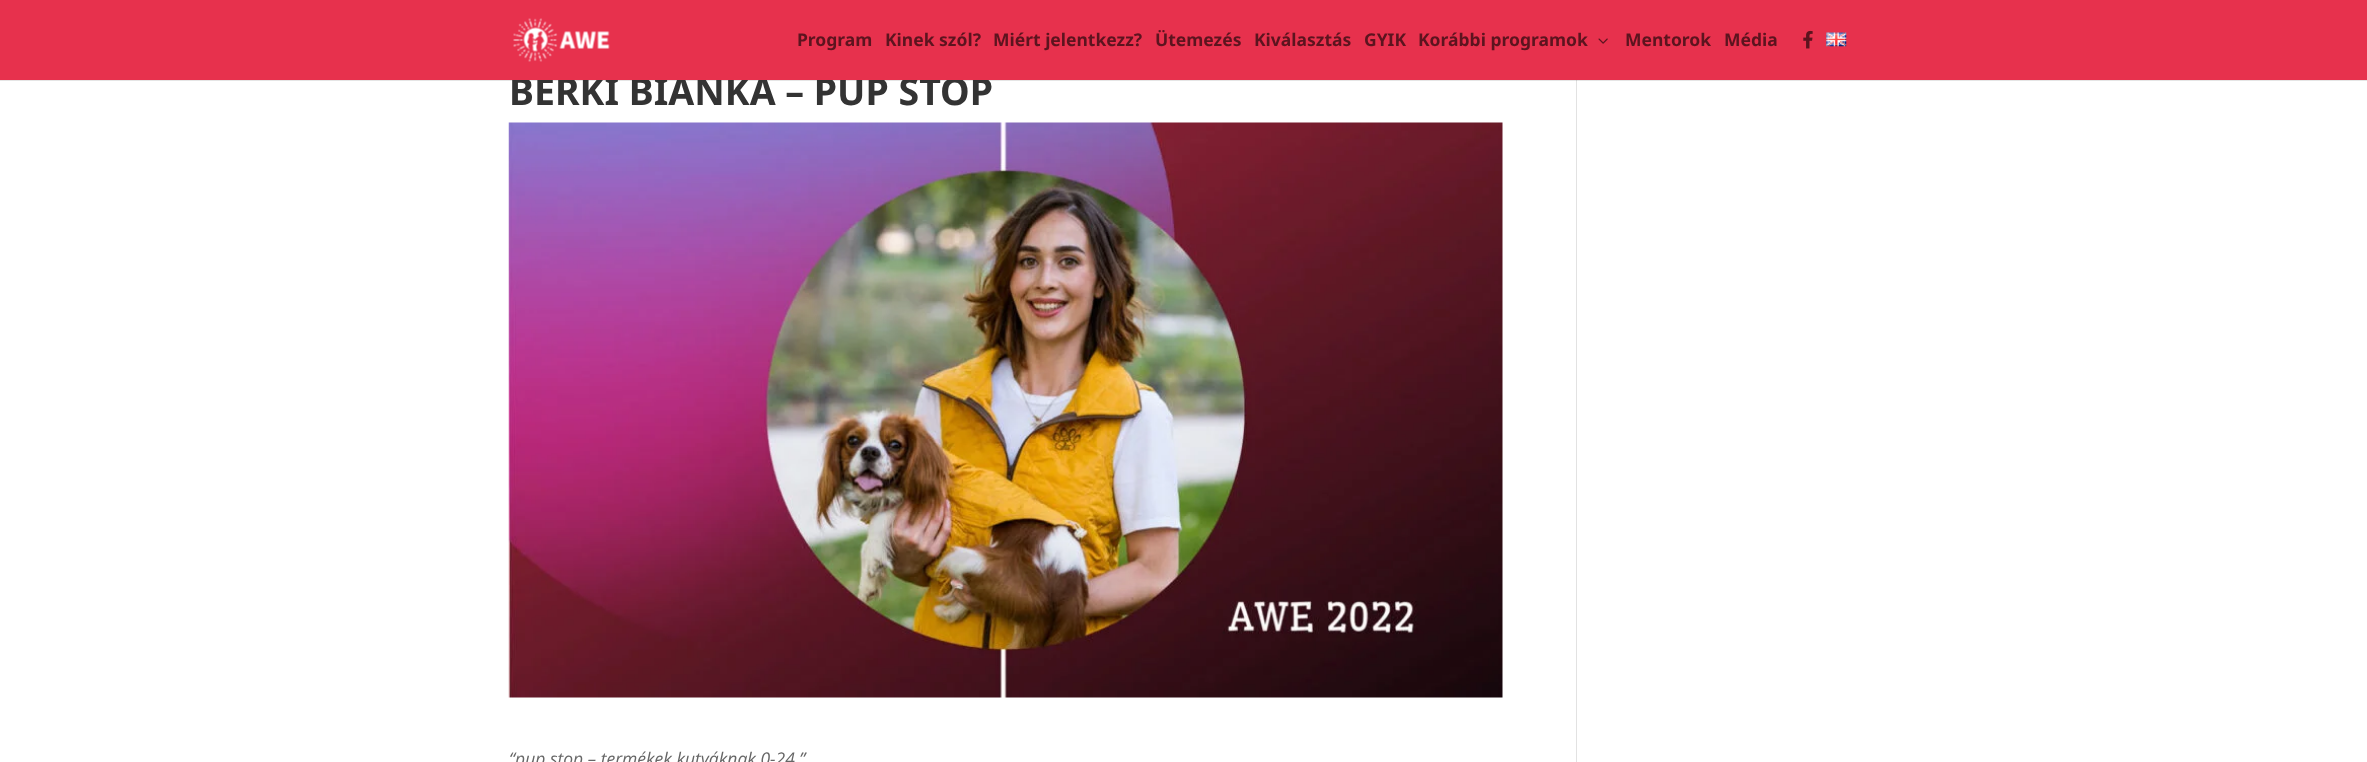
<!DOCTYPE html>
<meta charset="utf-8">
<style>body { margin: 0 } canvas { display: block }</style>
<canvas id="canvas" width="2367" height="762"></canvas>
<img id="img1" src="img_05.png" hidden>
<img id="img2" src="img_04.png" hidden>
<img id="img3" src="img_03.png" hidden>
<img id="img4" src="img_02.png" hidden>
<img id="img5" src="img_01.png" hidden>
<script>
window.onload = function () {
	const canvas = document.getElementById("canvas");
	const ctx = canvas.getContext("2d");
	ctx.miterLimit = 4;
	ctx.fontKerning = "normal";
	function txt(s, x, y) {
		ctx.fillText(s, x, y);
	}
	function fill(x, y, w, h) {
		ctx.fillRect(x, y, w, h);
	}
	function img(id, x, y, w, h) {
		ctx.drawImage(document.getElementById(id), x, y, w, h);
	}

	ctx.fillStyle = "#FFFFFF";
	fill(0, 0, 2367, 762);
	ctx.fillStyle = "#E2E2E2";
	fill(1576, 80, 1, 682);
	ctx.fillStyle = "rgba(0, 0, 0, 0.1)";
	ctx.beginPath();
	ctx.moveTo(0, 80);
	ctx.lineTo(0, 81);
	ctx.lineTo(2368, 81);
	ctx.lineTo(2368, 1);
	ctx.lineTo(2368, 80);
	ctx.closePath();
	ctx.fill();
	img("img1", 508, 122, 995, 576);
	ctx.font = "bold 37.5px Noto Sans";
	ctx.fillStyle = "#333333";
	txt("BERKI BIANKA – PUP STOP", 509, 105);
	ctx.fillStyle = "#E7314D";
	fill(0, 0, 2367, 80);
	img("img2", 1826, 32, 21, 15);
	img("img3", 1803, 30, 10, 19);
	ctx.font = "bold 17.5px Noto Sans";
	ctx.fillStyle = "#5C141F";
	txt("Média", 1724, 46);
	txt("Mentorok", 1625, 46);
	img("img4", 1598, 38, 10, 6);
	txt("Korábbi programok", 1418, 46);
	txt("GYIK", 1364, 46);
	txt("Kiválasztás", 1254, 46);
	txt("Ütemezés", 1155, 46);
	txt("Miért jelentkezz?", 993, 46);
	txt("Kinek szól?", 885, 46);
	txt("Program", 797, 46);
	img("img5", 513, 18, 97, 44);
	ctx.font = "italic 17.5px Open Sans";
	ctx.fillStyle = "#666666";
	txt("“pup stop – termékek kutyáknak 0-24.”", 509, 765);
};
</script>
